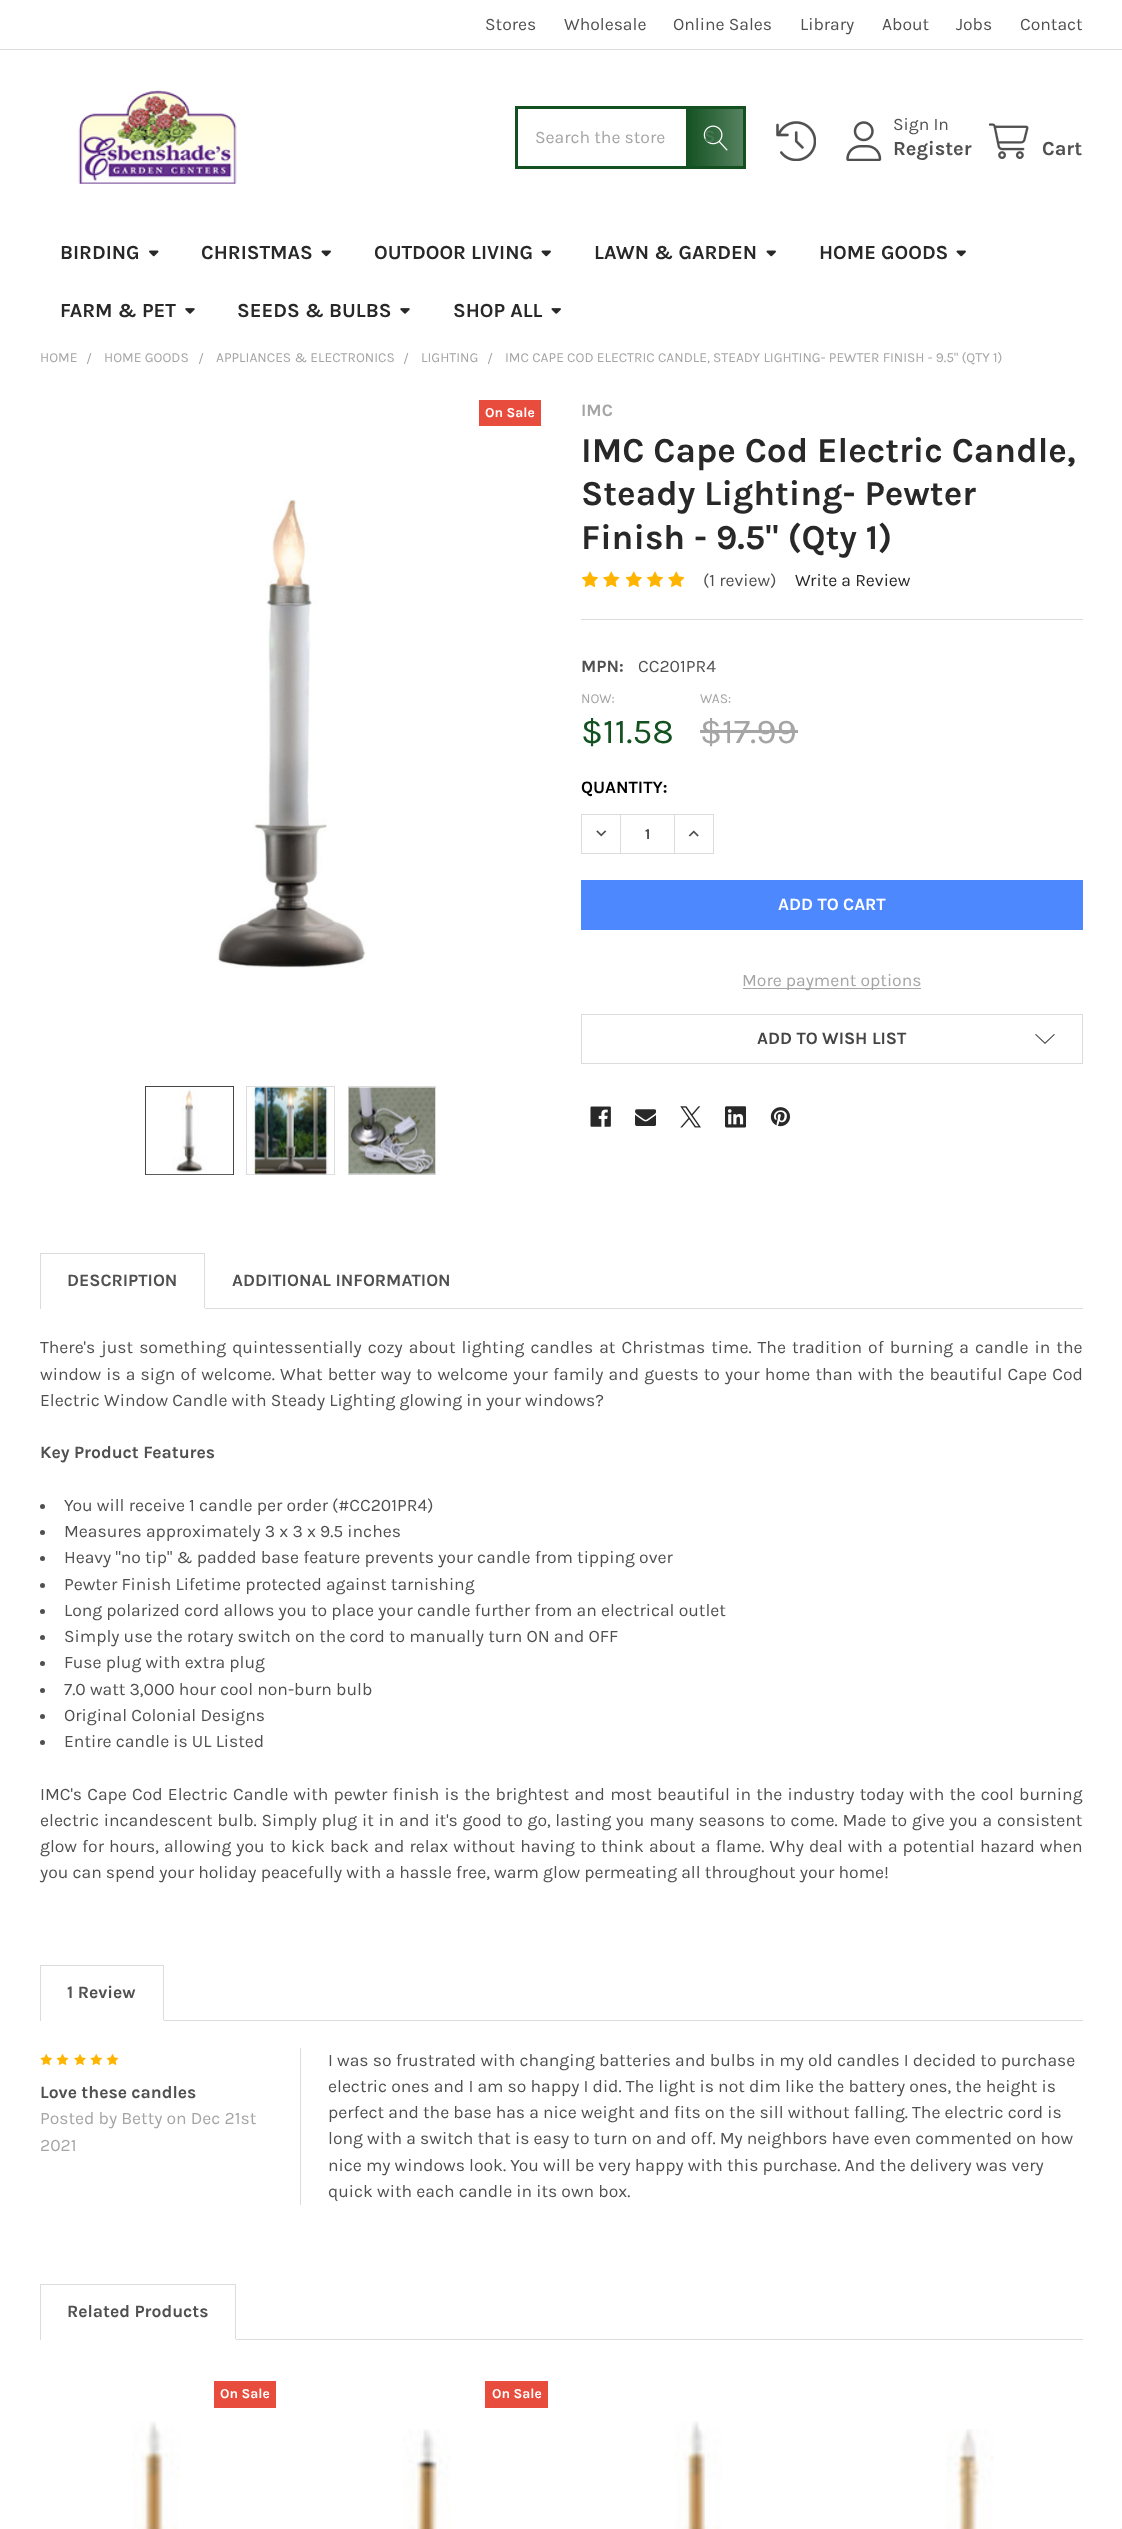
<!DOCTYPE html>
<meta charset="utf-8">
<style>body { margin: 0 } canvas { display: block }</style>
<canvas id="canvas" width="1122" height="2529"></canvas>
<img id="img1" src="img_01.png" hidden>
<img id="img2" src="img_02.png" hidden>
<img id="img3" src="img_03.png" hidden>
<img id="img4" src="img_04.png" hidden>
<img id="img5" src="img_05.png" hidden>
<img id="img6" src="img_06.png" hidden>
<img id="img7" src="img_07.png" hidden>
<img id="img8" src="img_08.png" hidden>
<img id="img9" src="img_09.png" hidden>
<img id="img10" src="img_10.png" hidden>
<img id="img11" src="img_11.png" hidden>
<img id="img12" src="img_12.png" hidden>
<img id="img13" src="img_13.png" hidden>
<img id="img14" src="img_14.png" hidden>
<img id="img15" src="img_15.png" hidden>
<img id="img16" src="img_16.png" hidden>
<img id="img17" src="img_17.png" hidden>
<img id="img18" src="img_18.png" hidden>
<img id="img19" src="img_19.png" hidden>
<img id="img20" src="img_20.png" hidden>
<img id="img21" src="img_21.png" hidden>
<img id="img22" src="img_22.png" hidden>
<img id="img23" src="img_23.png" hidden>
<img id="img24" src="img_24.png" hidden>
<img id="img25" src="img_25.png" hidden>
<img id="img26" src="img_26.png" hidden>
<img id="img27" src="img_27.png" hidden>
<img id="img28" src="img_28.png" hidden>
<img id="img29" src="img_29.png" hidden>
<img id="img30" src="img_30.png" hidden>
<script>
window.onload = function () {
	const canvas = document.getElementById("canvas");
	const ctx = canvas.getContext("2d");
	ctx.miterLimit = 4;
	ctx.fontKerning = "normal";
	function txt(s, x, y) {
		ctx.fillText(s, x, y);
	}
	function fill(x, y, w, h) {
		ctx.fillRect(x, y, w, h);
	}
	function img(id, x, y, w, h) {
		ctx.drawImage(document.getElementById(id), x, y, w, h);
	}
	let gradient;

	ctx.fillStyle = "#FFFFFF";
	fill(0, 0, 1122, 2529);
	ctx.fillStyle = "#DCDCDC";
	fill(0, 49, 1122, 1);
	img("img1", 78, 90, 159, 94);
	ctx.strokeStyle = "#135121";
	ctx.lineWidth = 3;
	ctx.strokeRect(516.5, 107.5, 228, 60);
	gradient = ctx.createLinearGradient(686, 138, 746, 138);
	gradient.addColorStop(0, "#135121");
	gradient.addColorStop(1, "rgba(19, 81, 33, 0.7)");
	ctx.fillStyle = gradient;
	fill(686, 109, 57, 57);
	img("img2", 703, 125, 25, 26);
	img("img3", 776, 121, 40, 40);
	img("img4", 846, 121, 36, 40);
	img("img5", 989, 123, 40, 37);
	img("img6", 149, 250, 10, 7);
	img("img7", 321, 250, 10, 7);
	img("img7", 541, 250, 10, 7);
	img("img7", 766, 250, 10, 7);
	img("img7", 956, 250, 10, 7);
	img("img8", 185, 308, 10, 6);
	img("img8", 400, 308, 10, 6);
	img("img9", 551, 308, 10, 6);
	ctx.fillStyle = "#E74C3C";
	fill(479, 400, 62, 26);
	img("img10", 217, 499, 149, 469);
	ctx.strokeStyle = "#454545";
	ctx.lineWidth = 1;
	ctx.strokeRect(145.5, 1086.5, 88, 88);
	img("img11", 146, 1088, 87, 87);
	ctx.strokeStyle = "#DCDCDC";
	ctx.strokeRect(246.5, 1086.5, 88, 88);
	img("img12", 248, 1087, 85, 88);
	ctx.strokeRect(348.5, 1086.5, 87, 88);
	img("img13", 348, 1087, 87, 88);
	img("img14", 581, 571, 18, 16);
	img("img15", 603, 571, 17, 16);
	img("img16", 625, 571, 17, 16);
	img("img14", 646, 571, 18, 16);
	img("img15", 668, 571, 17, 16);
	ctx.fillStyle = "#DCDCDC";
	fill(581, 619, 502, 1);
	ctx.fillStyle = "#A5A5A5";
	fill(700, 730, 98, 3);
	ctx.fillStyle = "#DCDCDC";
	fill(581, 814, 133, 1);
	fill(581, 853, 133, 1);
	fill(620, 815, 1, 38);
	fill(581, 815, 1, 38);
	img("img17", 596, 830, 11, 7);
	fill(713, 815, 1, 38);
	fill(674, 815, 1, 38);
	img("img18", 688, 830, 11, 7);
	ctx.fillStyle = "#4D88FF";
	fill(581, 880, 502, 50);
	ctx.fillStyle = "#A5A5A5";
	fill(743, 988, 178, 1);
	ctx.strokeRect(581.5, 1014.5, 501, 49);
	ctx.fillStyle = "#454545";
	ctx.beginPath();
	ctx.moveTo(1045, 1042.5);
	ctx.lineTo(1054, 1034);
	ctx.lineTo(1055, 1034.5);
	ctx.lineTo(1045, 1044);
	ctx.lineTo(1035, 1034.5);
	ctx.lineTo(1036, 1034);
	ctx.closePath();
	ctx.fill("evenodd");
	img("img19", 590, 1106, 21, 21);
	img("img20", 635, 1109, 21, 17);
	img("img21", 680, 1106, 21, 22);
	img("img22", 725, 1106, 21, 22);
	img("img23", 770, 1107, 20, 20);
	ctx.fillStyle = "#DCDCDC";
	fill(205, 1308, 878, 1);
	fill(40, 1253, 165, 1);
	fill(204, 1253, 1, 56);
	ctx.fillStyle = "#FFFFFF";
	fill(204, 1308, 1, 1);
	ctx.fillStyle = "#DCDCDC";
	fill(40, 1253, 1, 56);
	ctx.fillStyle = "#505050";
	ctx.beginPath();
	ctx.arc(42.5, 1506.5, 2.5, 0, Math.PI * 2);
	ctx.fill();
	ctx.beginPath();
	ctx.arc(42.5, 1532.5, 2.5, 0, Math.PI * 2);
	ctx.fill();
	ctx.beginPath();
	ctx.arc(42.5, 1558.5, 2.5, 0, Math.PI * 2);
	ctx.fill();
	ctx.beginPath();
	ctx.arc(42.5, 1585.5, 2.5, 0, Math.PI * 2);
	ctx.fill();
	ctx.beginPath();
	ctx.arc(42.5, 1611.5, 2.5, 0, Math.PI * 2);
	ctx.fill();
	ctx.beginPath();
	ctx.arc(42.5, 1637.5, 2.5, 0, Math.PI * 2);
	ctx.fill();
	ctx.beginPath();
	ctx.arc(42.5, 1663.5, 2.5, 0, Math.PI * 2);
	ctx.fill();
	ctx.beginPath();
	ctx.arc(42.5, 1690.5, 2.5, 0, Math.PI * 2);
	ctx.fill();
	ctx.beginPath();
	ctx.arc(42.5, 1716.5, 2.5, 0, Math.PI * 2);
	ctx.fill();
	ctx.beginPath();
	ctx.arc(42.5, 1742.5, 2.5, 0, Math.PI * 2);
	ctx.fill();
	ctx.fillStyle = "#DCDCDC";
	fill(164, 2020, 919, 1);
	fill(40, 1965, 124, 1);
	fill(163, 1965, 1, 56);
	ctx.fillStyle = "#FFFFFF";
	fill(163, 2020, 1, 1);
	ctx.fillStyle = "#DCDCDC";
	fill(40, 1965, 1, 56);
	img("img24", 40, 2054, 12, 11);
	img("img25", 56, 2054, 13, 11);
	img("img26", 74, 2054, 12, 11);
	img("img24", 90, 2054, 12, 11);
	img("img25", 106, 2054, 13, 11);
	fill(300, 2048, 1, 157);
	fill(236, 2339, 847, 1);
	fill(40, 2284, 196, 1);
	fill(235, 2284, 1, 56);
	ctx.fillStyle = "#FFFFFF";
	fill(235, 2339, 1, 1);
	ctx.fillStyle = "#DCDCDC";
	fill(40, 2284, 1, 56);
	ctx.fillStyle = "#E74C3C";
	fill(214, 2381, 62, 27);
	img("img27", 132, 2421, 48, 108);
	fill(485, 2381, 63, 27);
	img("img28", 403, 2429, 48, 100);
	img("img29", 675, 2421, 47, 108);
	img("img30", 946, 2429, 48, 100);
	ctx.fillStyle = "#F5F5F5";
	fill(1120, 2528, 2, 1);
	ctx.font = "17.5px Karla";
	ctx.fillStyle = "#505050";
	txt("Stores", 485, 30);
	txt("Wholesale", 564, 30);
	txt("Online Sales", 673, 30);
	txt("Library", 800, 30);
	txt("About", 882, 30);
	txt("Jobs", 956, 30);
	txt("Contact", 1020, 30);
	ctx.fillStyle = "#A5A5A5";
	txt("Search the store", 535, 143);
	ctx.font = "bold 17.5px Karla";
	ctx.fillStyle = "#487853";
	txt("S", 704, 142);
	ctx.font = "17.5px Karla";
	ctx.fillStyle = "#505050";
	txt("Sign In", 893, 130);
	ctx.font = "bold 20px Karla";
	txt("Register", 893, 155);
	txt("Cart", 1042, 155);
	ctx.fillStyle = "#282828";
	txt("BIRDING", 60, 259);
	txt("CHRISTMAS", 201, 259);
	txt("OUTDOOR LIVING", 374, 259);
	txt("LAWN & GARDEN", 594, 259);
	txt("HOME GOODS", 819, 259);
	txt("FARM & PET", 60, 317);
	txt("SEEDS & BULBS", 237, 317);
	txt("SHOP ALL", 453, 317);
	ctx.font = "13.75px Karla";
	ctx.fillStyle = "#A5A5A5";
	txt("HOME", 40, 362);
	txt("/", 86, 363);
	txt("HOME GOODS", 104, 362);
	txt("/", 198, 363);
	txt("APPLIANCES & ELECTRONICS", 216, 362);
	txt("/", 403, 363);
	txt("LIGHTING", 421, 362);
	txt("/", 487, 363);
	txt("IMC CAPE COD ELECTRIC CANDLE, STEADY LIGHTING- PEWTER FINISH - 9.5\" (QTY 1)", 505, 362);
	ctx.font = "bold 13.75px Karla";
	ctx.fillStyle = "#FFFFFF";
	txt("On Sale", 485, 417);
	ctx.font = "bold 17.5px Karla";
	ctx.fillStyle = "#A5A5A5";
	txt("IMC", 581, 416);
	ctx.font = "bold 35px Karla";
	ctx.fillStyle = "#282828";
	txt("IMC Cape Cod Electric Candle,", 581, 462);
	txt("Steady Lighting- Pewter", 581, 505);
	txt("Finish - 9.5\" (Qty 1)", 581, 549);
	ctx.font = "17.5px Karla";
	ctx.fillStyle = "#505050";
	txt("(1 review)", 703, 586);
	ctx.fillStyle = "#282828";
	txt("Write a Review", 795, 586);
	ctx.font = "bold 17.5px Karla";
	ctx.fillStyle = "#505050";
	txt("MPN:", 581, 672);
	ctx.font = "17.5px Karla";
	txt("CC201PR4", 638, 672);
	ctx.font = "13.75px Karla";
	ctx.fillStyle = "#A5A5A5";
	txt("NOW:", 581, 703);
	ctx.font = "35px Karla";
	ctx.fillStyle = "#135121";
	txt("$11.58", 581, 743);
	ctx.font = "13.75px Karla";
	ctx.fillStyle = "#A5A5A5";
	txt("WAS:", 700, 703);
	ctx.font = "35px Karla";
	txt("$17.99", 700, 743);
	ctx.font = "bold 17.5px Karla";
	ctx.fillStyle = "#000000";
	txt("QUANTITY:", 581, 793);
	ctx.font = "bold 15px Karla";
	ctx.fillStyle = "#454545";
	txt("1", 645, 839);
	ctx.font = "bold 17.5px Karla";
	ctx.fillStyle = "#FFFFFF";
	txt("ADD TO CART", 778, 910);
	ctx.font = "17.5px Karla";
	ctx.fillStyle = "#A5A5A5";
	txt("More payment options", 742, 986);
	ctx.font = "bold 17.5px Karla";
	ctx.fillStyle = "#454545";
	txt("ADD TO WISH LIST", 757, 1044);
	ctx.fillStyle = "#505050";
	txt("DESCRIPTION", 67, 1286);
	txt("ADDITIONAL INFORMATION", 232, 1286);
	ctx.wordSpacing = "1.9px";
	ctx.font = "17.5px Karla";
	txt("There's just something quintessentially cozy about lighting candles at Christmas time. The tradition of burning a candle in the", 40, 1353);
	ctx.wordSpacing = "1px";
	txt("window is a sign of welcome. What better way to welcome your family and guests to your home than with the beautiful Cape Cod", 40, 1380);
	ctx.wordSpacing = "0px";
	txt("Electric Window Candle with Steady Lighting glowing in your windows?", 40, 1406);
	ctx.font = "bold 17.5px Karla";
	txt("Key Product Features", 40, 1458);
	ctx.font = "17.5px Karla";
	txt("You will receive 1 candle per order (#CC201PR4)", 64, 1511);
	txt("Measures approximately 3 x 3 x 9.5 inches", 64, 1537);
	txt("Heavy \"no tip\" & padded base feature prevents your candle from tipping over", 64, 1563);
	txt("Pewter Finish Lifetime protected against tarnishing", 64, 1590);
	txt("Long polarized cord allows you to place your candle further from an electrical outlet", 64, 1616);
	txt("Simply use the rotary switch on the cord to manually turn ON and OFF", 64, 1642);
	txt("Fuse plug with extra plug", 64, 1668);
	txt("7.0 watt 3,000 hour cool non-burn bulb", 64, 1695);
	txt("Original Colonial Designs", 64, 1721);
	txt("Entire candle is UL Listed", 64, 1747);
	ctx.wordSpacing = "1.05px";
	txt("IMC's Cape Cod Electric Candle with pewter finish is the brightest and most beautiful in the industry today with the cool burning", 40, 1800);
	ctx.wordSpacing = "0.6px";
	txt("electric incandescent bulb. Simply plug it in and it's good to go, lasting you many seasons to come. Made to give you a consistent", 40, 1826);
	ctx.wordSpacing = "0.9px";
	txt("glow for hours, allowing you to kick back and relax without having to think about a flame. Why deal with a potential hazard when", 40, 1852);
	ctx.wordSpacing = "0px";
	txt("you can spend your holiday peacefully with a hassle free, warm glow permeating all throughout your home!", 40, 1878);
	ctx.font = "bold 17.5px Karla";
	txt("1 Review", 67, 1998);
	txt("Love these candles", 40, 2098);
	ctx.font = "17.5px Karla";
	ctx.fillStyle = "#A5A5A5";
	txt("Posted by Betty on Dec 21st", 40, 2124);
	txt("2021", 40, 2151);
	ctx.fillStyle = "#505050";
	txt("I was so frustrated with changing batteries and bulbs in my old candles I decided to purchase", 328, 2066);
	txt("electric ones and I am so happy I did. The light is not dim like the battery ones, the height is", 328, 2092);
	txt("perfect and the base has a nice weight and fits on the sill without falling. The electric cord is", 328, 2118);
	txt("long with a switch that is easy to turn on and off. My neighbors have even commented on how", 328, 2144);
	txt("nice my windows look. You will be very happy with this purchase. And the delivery was very", 328, 2171);
	txt("quick with each candle in its own box.", 328, 2197);
	ctx.font = "bold 17.5px Karla";
	txt("Related Products", 67, 2317);
	ctx.font = "bold 13.75px Karla";
	ctx.fillStyle = "#FFFFFF";
	txt("On Sale", 220, 2398);
	txt("On Sale", 492, 2398);
};
</script>
